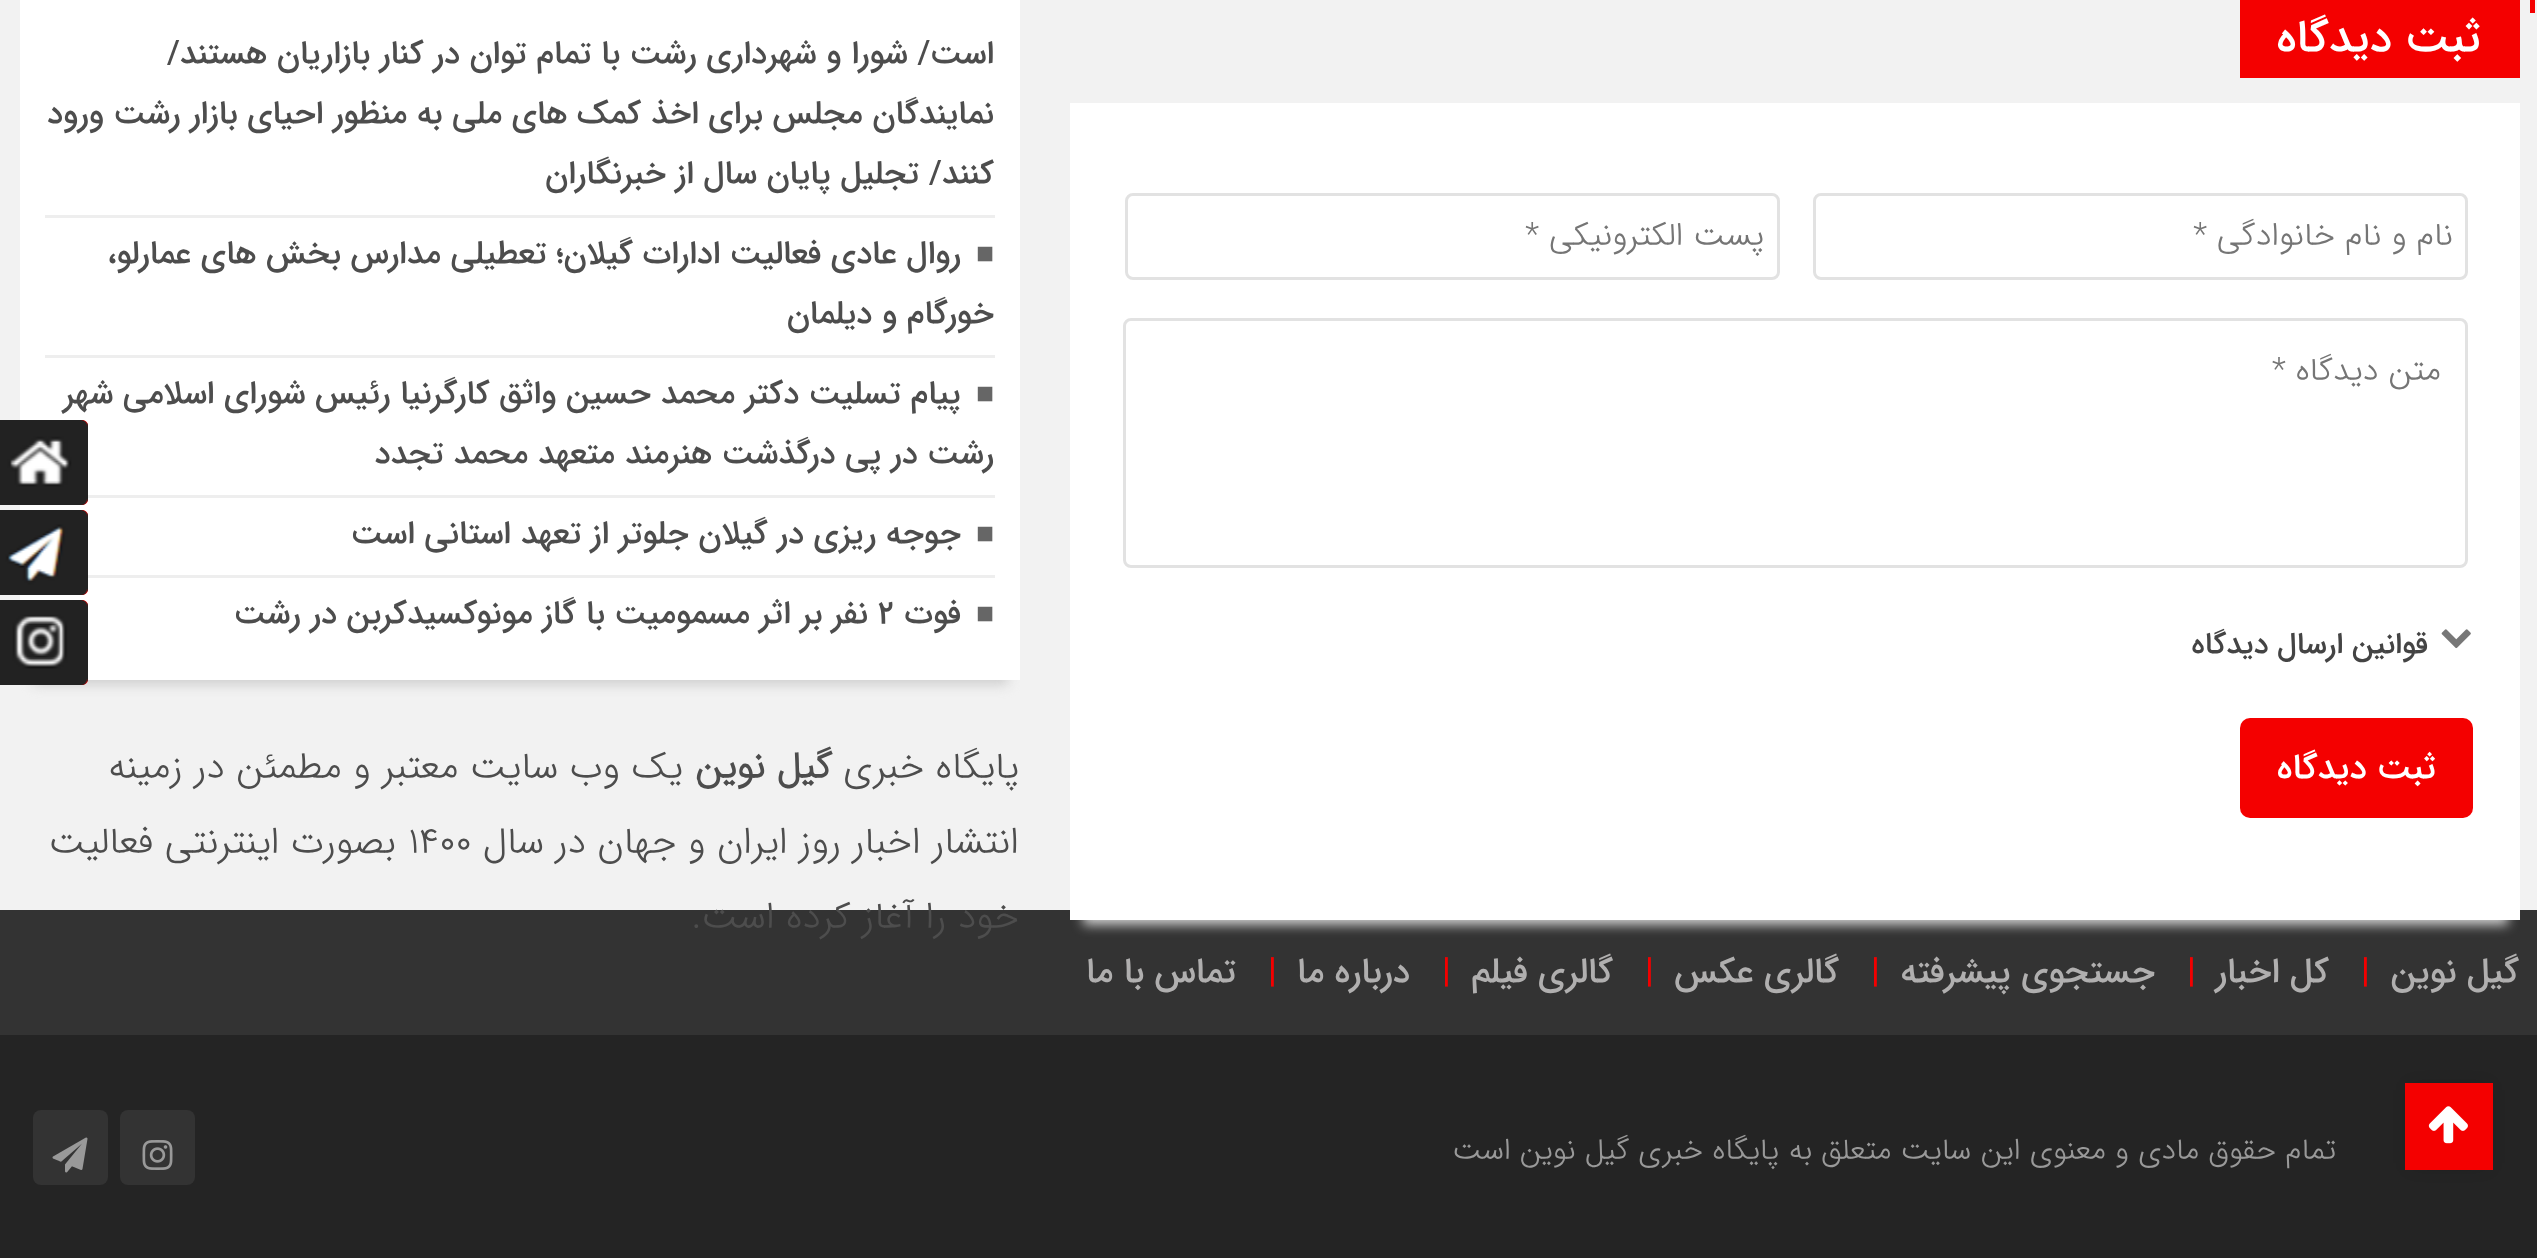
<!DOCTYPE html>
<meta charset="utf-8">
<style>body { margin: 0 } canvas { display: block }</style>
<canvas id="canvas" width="2537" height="1258"></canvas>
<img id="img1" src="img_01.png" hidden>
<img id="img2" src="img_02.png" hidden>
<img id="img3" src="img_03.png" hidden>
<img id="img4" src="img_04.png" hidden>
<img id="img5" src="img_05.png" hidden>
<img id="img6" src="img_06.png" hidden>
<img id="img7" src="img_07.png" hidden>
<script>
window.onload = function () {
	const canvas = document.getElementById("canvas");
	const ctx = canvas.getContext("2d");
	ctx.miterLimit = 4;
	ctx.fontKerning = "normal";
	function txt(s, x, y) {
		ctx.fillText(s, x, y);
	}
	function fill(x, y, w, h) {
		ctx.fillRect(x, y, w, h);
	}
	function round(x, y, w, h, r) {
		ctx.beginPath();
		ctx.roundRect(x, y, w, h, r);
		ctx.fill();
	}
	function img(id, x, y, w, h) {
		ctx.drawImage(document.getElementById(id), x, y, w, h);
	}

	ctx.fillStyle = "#F2F2F2";
	fill(0, 0, 2537, 1258);
	ctx.fillStyle = "#F40000";
	fill(2240, 0, 280, 78);
	fill(2530, 0, 5, 13);
	ctx.fillStyle = "#333333";
	fill(0, 910, 2537, 125);
	ctx.fillStyle = "#CFCFCF";
	ctx.filter = "blur(6px)";
	ctx.beginPath();
	ctx.rect(1083, 133, 1425, 792);
	ctx.fill();
	ctx.filter = "none";
	ctx.fillStyle = "#FFFFFF";
	fill(1070, 103, 1450, 817);
	ctx.beginPath();
	ctx.roundRect(1814.5, 194.5, 652, 84, 6.5);
	ctx.strokeStyle = "#E2E2E2";
	ctx.lineWidth = 3;
	ctx.stroke();
	ctx.beginPath();
	ctx.roundRect(1126.5, 194.5, 652, 84, 6.5);
	ctx.stroke();
	ctx.beginPath();
	ctx.roundRect(1124.5, 319.5, 1342, 247, 6.5);
	ctx.stroke();
	img("img1", 2441, 629, 30, 20);
	ctx.fillStyle = "#F40000";
	round(2240, 718, 233, 100, 10);
	ctx.fillStyle = "#CFCFCF";
	ctx.filter = "blur(6px)";
	ctx.beginPath();
	ctx.rect(33, -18, 975, 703);
	ctx.fill();
	ctx.filter = "none";
	ctx.fillStyle = "#FFFFFF";
	fill(20, 0, 1000, 680);
	ctx.fillStyle = "#EEEEEE";
	fill(45, 215, 950, 3);
	fill(45, 355, 950, 3);
	fill(88, 495, 907, 3);
	fill(88, 575, 907, 3);
	ctx.fillStyle = "#F40000";
	ctx.beginPath();
	ctx.moveTo(-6, 420);
	ctx.lineTo(82, 420);
	ctx.bezierCurveTo(85.5, 420, 88, 422.5, 88, 426);
	ctx.lineTo(88, 499);
	ctx.bezierCurveTo(88, 502.5, 85.5, 505, 82, 505);
	ctx.lineTo(-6, 505);
	ctx.closePath();
	ctx.fill();
	img("img2", 0, 420, 88, 85);
	ctx.beginPath();
	ctx.moveTo(-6, 510);
	ctx.lineTo(82, 510);
	ctx.bezierCurveTo(85.5, 510, 88, 512.5, 88, 516);
	ctx.lineTo(88, 589);
	ctx.bezierCurveTo(88, 592.5, 85.5, 595, 82, 595);
	ctx.lineTo(-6, 595);
	ctx.closePath();
	ctx.fill();
	img("img3", 0, 510, 88, 85);
	ctx.beginPath();
	ctx.moveTo(-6, 600);
	ctx.lineTo(82, 600);
	ctx.bezierCurveTo(85.5, 600, 88, 602.5, 88, 606);
	ctx.lineTo(88, 679);
	ctx.bezierCurveTo(88, 682.5, 85.5, 685, 82, 685);
	ctx.lineTo(-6, 685);
	ctx.closePath();
	ctx.fill();
	img("img4", 0, 600, 88, 85);
	ctx.fillStyle = "#242424";
	fill(0, 1035, 2537, 223);
	ctx.fillStyle = "rgba(0, 0, 0, 0.3)";
	ctx.filter = "blur(9px)";
	ctx.beginPath();
	ctx.rect(2413, 1090, 72, 73);
	ctx.fill();
	ctx.filter = "none";
	ctx.fillStyle = "#F40000";
	fill(2405, 1083, 88, 87);
	img("img5", 2428, 1106, 40, 38);
	ctx.fillStyle = "#333333";
	round(120, 1110, 75, 75, 8);
	img("img6", 142, 1140, 31, 30);
	round(33, 1110, 75, 75, 8);
	img("img7", 52, 1137, 36, 36);
	ctx.direction = "rtl";
	ctx.font = "500 45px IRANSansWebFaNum";
	ctx.fillStyle = "#FFFFFF";
	txt("ثبت دیدگاه", 2481, 51);
	ctx.font = "300 32.5px IRANSansWebFaNum";
	ctx.fillStyle = "#757575";
	txt("نام و نام خانوادگی *", 2453, 245);
	txt("پست الکترونیکی *", 1764, 245);
	txt("متن دیدگاه *", 2441, 380);
	ctx.font = "500 30px IRANSansWebFaNum";
	ctx.fillStyle = "#444444";
	txt("قوانین ارسال دیدگاه", 2428, 653);
	ctx.font = "500 35px IRANSansWebFaNum";
	ctx.fillStyle = "#FFFFFF";
	txt("ثبت دیدگاه", 2436, 778);
	ctx.font = "500 32.5px IRANSansWebFaNum";
	ctx.fillStyle = "#4D4D4D";
	txt("است/ شورا و شهرداری رشت با تمام توان در کنار بازاریان هستند/", 994, 63);
	txt("نمایندگان مجلس برای اخذ کمک های ملی به منظور احیای بازار رشت ورود", 994, 123);
	txt("کنند/ تجلیل پایان سال از خبرنگاران", 994, 183);
	ctx.direction = "ltr";
	ctx.font = "30px Liberation Sans";
	ctx.fillStyle = "#666666";
	txt("■", 976, 263);
	ctx.direction = "rtl";
	ctx.font = "500 32.5px IRANSansWebFaNum";
	ctx.fillStyle = "#4D4D4D";
	txt("روال عادی فعالیت ادارات گیلان؛ تعطیلی مدارس بخش های عمارلو،", 961, 263);
	txt("خورگام و دیلمان", 994, 323);
	ctx.direction = "ltr";
	ctx.font = "30px Liberation Sans";
	ctx.fillStyle = "#666666";
	txt("■", 976, 403);
	ctx.direction = "rtl";
	ctx.font = "500 32.5px IRANSansWebFaNum";
	ctx.fillStyle = "#4D4D4D";
	txt("پیام تسلیت دکتر محمد حسین واثق کارگرنیا رئیس شورای اسلامی شهر", 961, 403);
	txt("رشت در پی درگذشت هنرمند متعهد محمد تجدد", 994, 463);
	ctx.direction = "ltr";
	ctx.font = "30px Liberation Sans";
	ctx.fillStyle = "#666666";
	txt("■", 976, 543);
	ctx.direction = "rtl";
	ctx.font = "500 32.5px IRANSansWebFaNum";
	ctx.fillStyle = "#4D4D4D";
	txt("جوجه ریزی در گیلان جلوتر از تعهد استانی است", 961, 543);
	ctx.direction = "ltr";
	ctx.font = "30px Liberation Sans";
	ctx.fillStyle = "#666666";
	txt("■", 976, 623);
	ctx.direction = "rtl";
	ctx.font = "500 32.5px IRANSansWebFaNum";
	ctx.fillStyle = "#4D4D4D";
	txt("فوت", 961, 623);
	ctx.direction = "ltr";
	txt("۲", 878, 623);
	ctx.direction = "rtl";
	txt("نفر بر اثر مسمومیت با گاز مونوکسیدکربن در رشت", 868, 623);
	ctx.font = "300 37.5px IRANSansWebFaNum";
	txt("پایگاه خبری", 1019, 778);
	ctx.font = "bold 37.5px IRANSansWebFaNum";
	txt("گیل نوین", 832, 778);
	ctx.font = "300 37.5px IRANSansWebFaNum";
	txt("یک وب سایت معتبر و مطمئن در زمینه", 683, 778);
	txt("انتشار اخبار روز ایران و جهان در سال", 1019, 853);
	ctx.direction = "ltr";
	txt("1400", 408, 853);
	ctx.direction = "rtl";
	txt("بصورت اینترنتی فعالیت", 396, 853);
	txt("خود را آغاز کرده است.", 1019, 928);
	ctx.font = "500 35px IRANSansWebFaNum";
	ctx.fillStyle = "#B0AFAF";
	txt("گیل نوین", 2519, 982);
	ctx.direction = "ltr";
	ctx.fillStyle = "#F40000";
	txt("|", 2361, 982);
	ctx.direction = "rtl";
	ctx.fillStyle = "#B0AFAF";
	txt("کل اخبار", 2329, 982);
	ctx.direction = "ltr";
	ctx.fillStyle = "#F40000";
	txt("|", 2187, 982);
	ctx.direction = "rtl";
	ctx.fillStyle = "#B0AFAF";
	txt("جستجوی پیشرفته", 2155, 982);
	ctx.direction = "ltr";
	ctx.fillStyle = "#F40000";
	txt("|", 1871, 982);
	ctx.direction = "rtl";
	ctx.fillStyle = "#B0AFAF";
	txt("گالری عکس", 1839, 982);
	ctx.direction = "ltr";
	ctx.fillStyle = "#F40000";
	txt("|", 1645, 982);
	ctx.direction = "rtl";
	ctx.fillStyle = "#B0AFAF";
	txt("گالری فیلم", 1613, 982);
	ctx.direction = "ltr";
	ctx.fillStyle = "#F40000";
	txt("|", 1442, 982);
	ctx.direction = "rtl";
	ctx.fillStyle = "#B0AFAF";
	txt("درباره ما", 1410, 982);
	ctx.direction = "ltr";
	ctx.fillStyle = "#F40000";
	txt("|", 1268, 982);
	ctx.direction = "rtl";
	ctx.fillStyle = "#B0AFAF";
	txt("تماس با ما", 1236, 982);
	ctx.font = "300 30px IRANSansWebFaNum";
	ctx.fillStyle = "#999999";
	txt("تمام حقوق مادی و معنوی این سایت متعلق به", 2336, 1159);
	txt("پایگاه خبری گیل نوین", 1779, 1159);
	txt("است", 1511, 1159);
};
</script>
